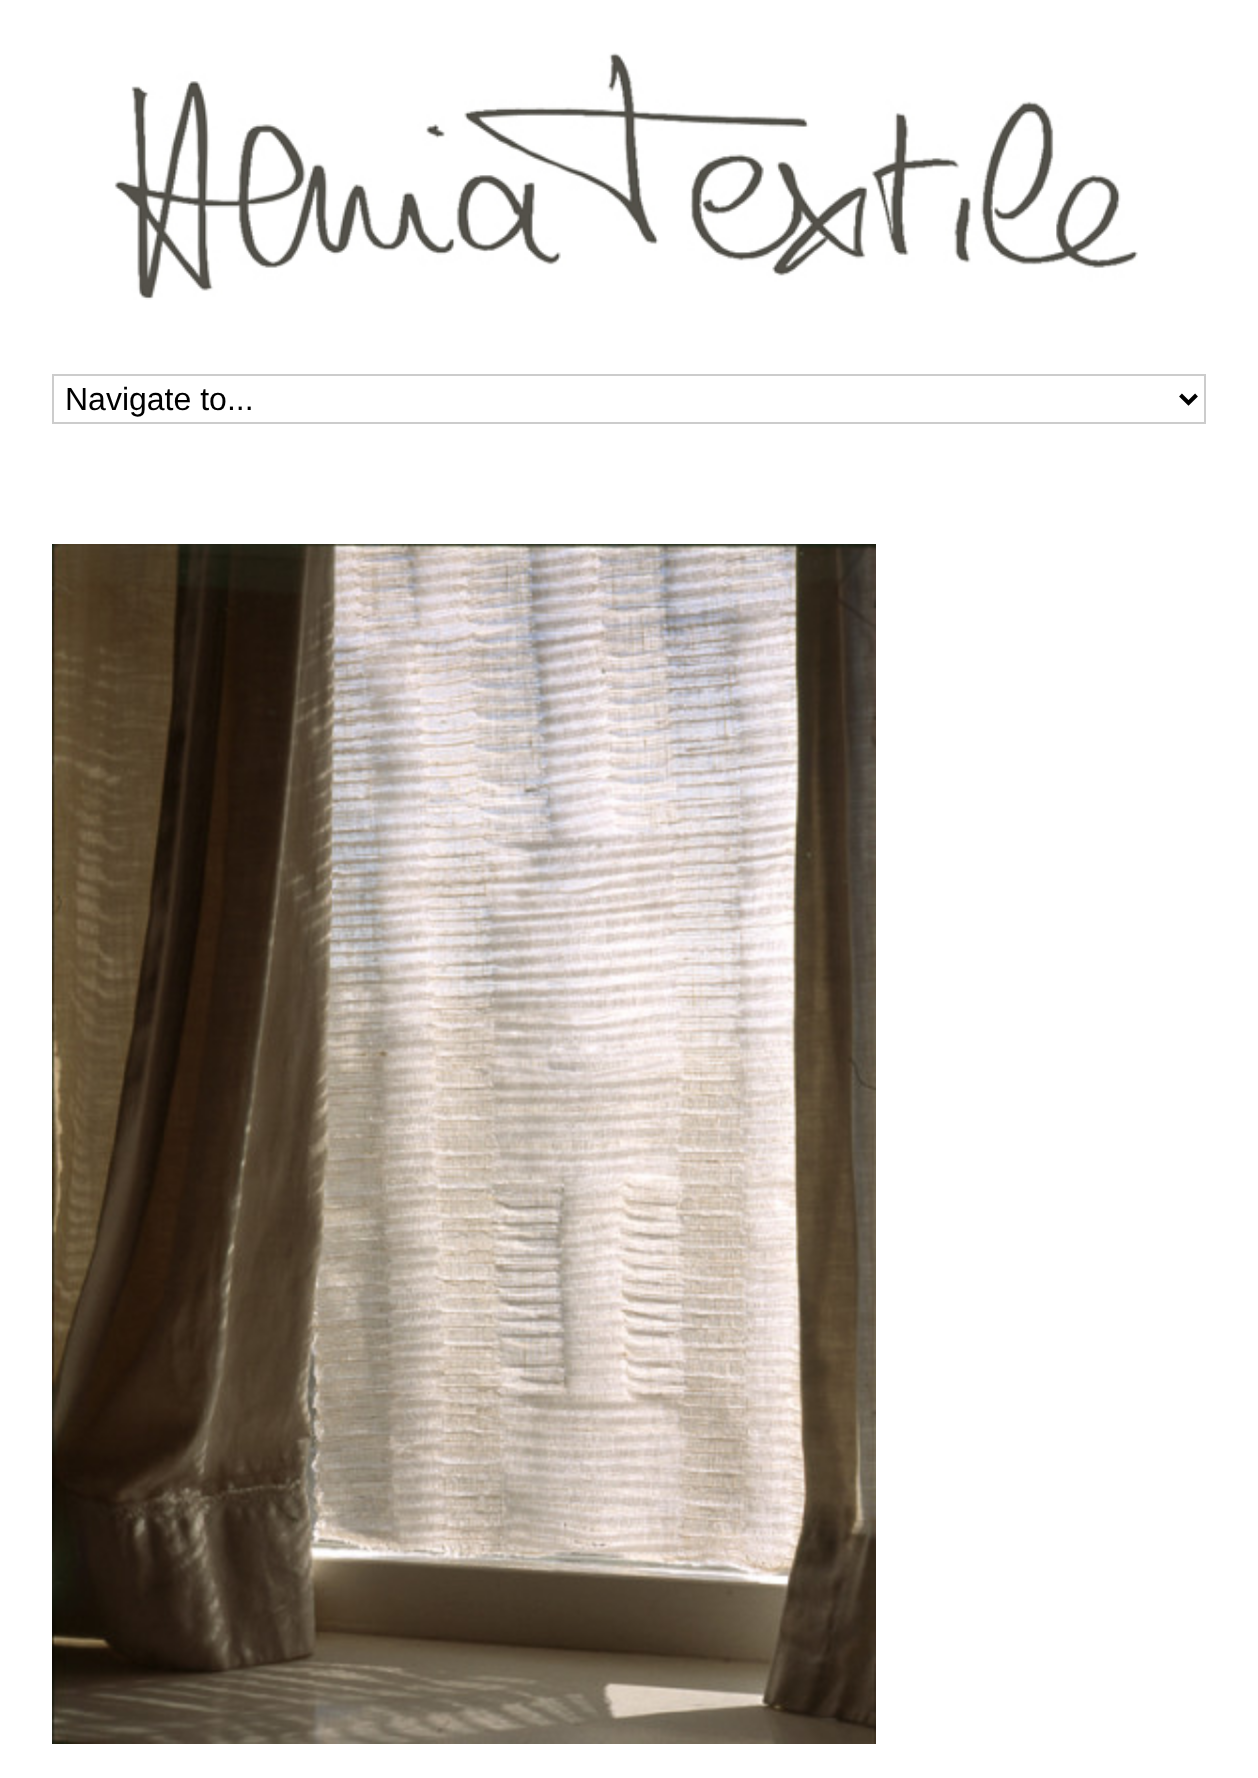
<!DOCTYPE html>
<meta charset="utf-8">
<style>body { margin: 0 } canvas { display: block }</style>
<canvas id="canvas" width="1258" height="1778"></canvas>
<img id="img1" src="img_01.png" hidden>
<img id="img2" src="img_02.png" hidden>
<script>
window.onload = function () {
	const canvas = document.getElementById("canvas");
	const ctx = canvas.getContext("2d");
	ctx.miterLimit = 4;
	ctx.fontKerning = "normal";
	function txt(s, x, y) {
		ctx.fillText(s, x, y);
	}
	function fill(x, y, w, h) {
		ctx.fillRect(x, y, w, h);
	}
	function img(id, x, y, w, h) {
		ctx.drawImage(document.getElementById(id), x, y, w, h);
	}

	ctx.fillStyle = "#FFFFFF";
	fill(0, 0, 1258, 1778);
	img("img1", 114, 52, 1024, 248);
	ctx.strokeStyle = "#CCCCCC";
	ctx.lineWidth = 2;
	ctx.strokeRect(53, 375, 1152, 48);
	ctx.beginPath();
	ctx.moveTo(1180.5, 395);
	ctx.lineTo(1188.5, 403);
	ctx.lineTo(1196.5, 395);
	ctx.strokeStyle = "#000000";
	ctx.lineWidth = 4;
	ctx.stroke();
	img("img2", 52, 544, 824, 1200);
	ctx.font = "32px Liberation Sans";
	ctx.fillStyle = "#000000";
	txt("Navigate to...", 65, 410);
};
</script>
